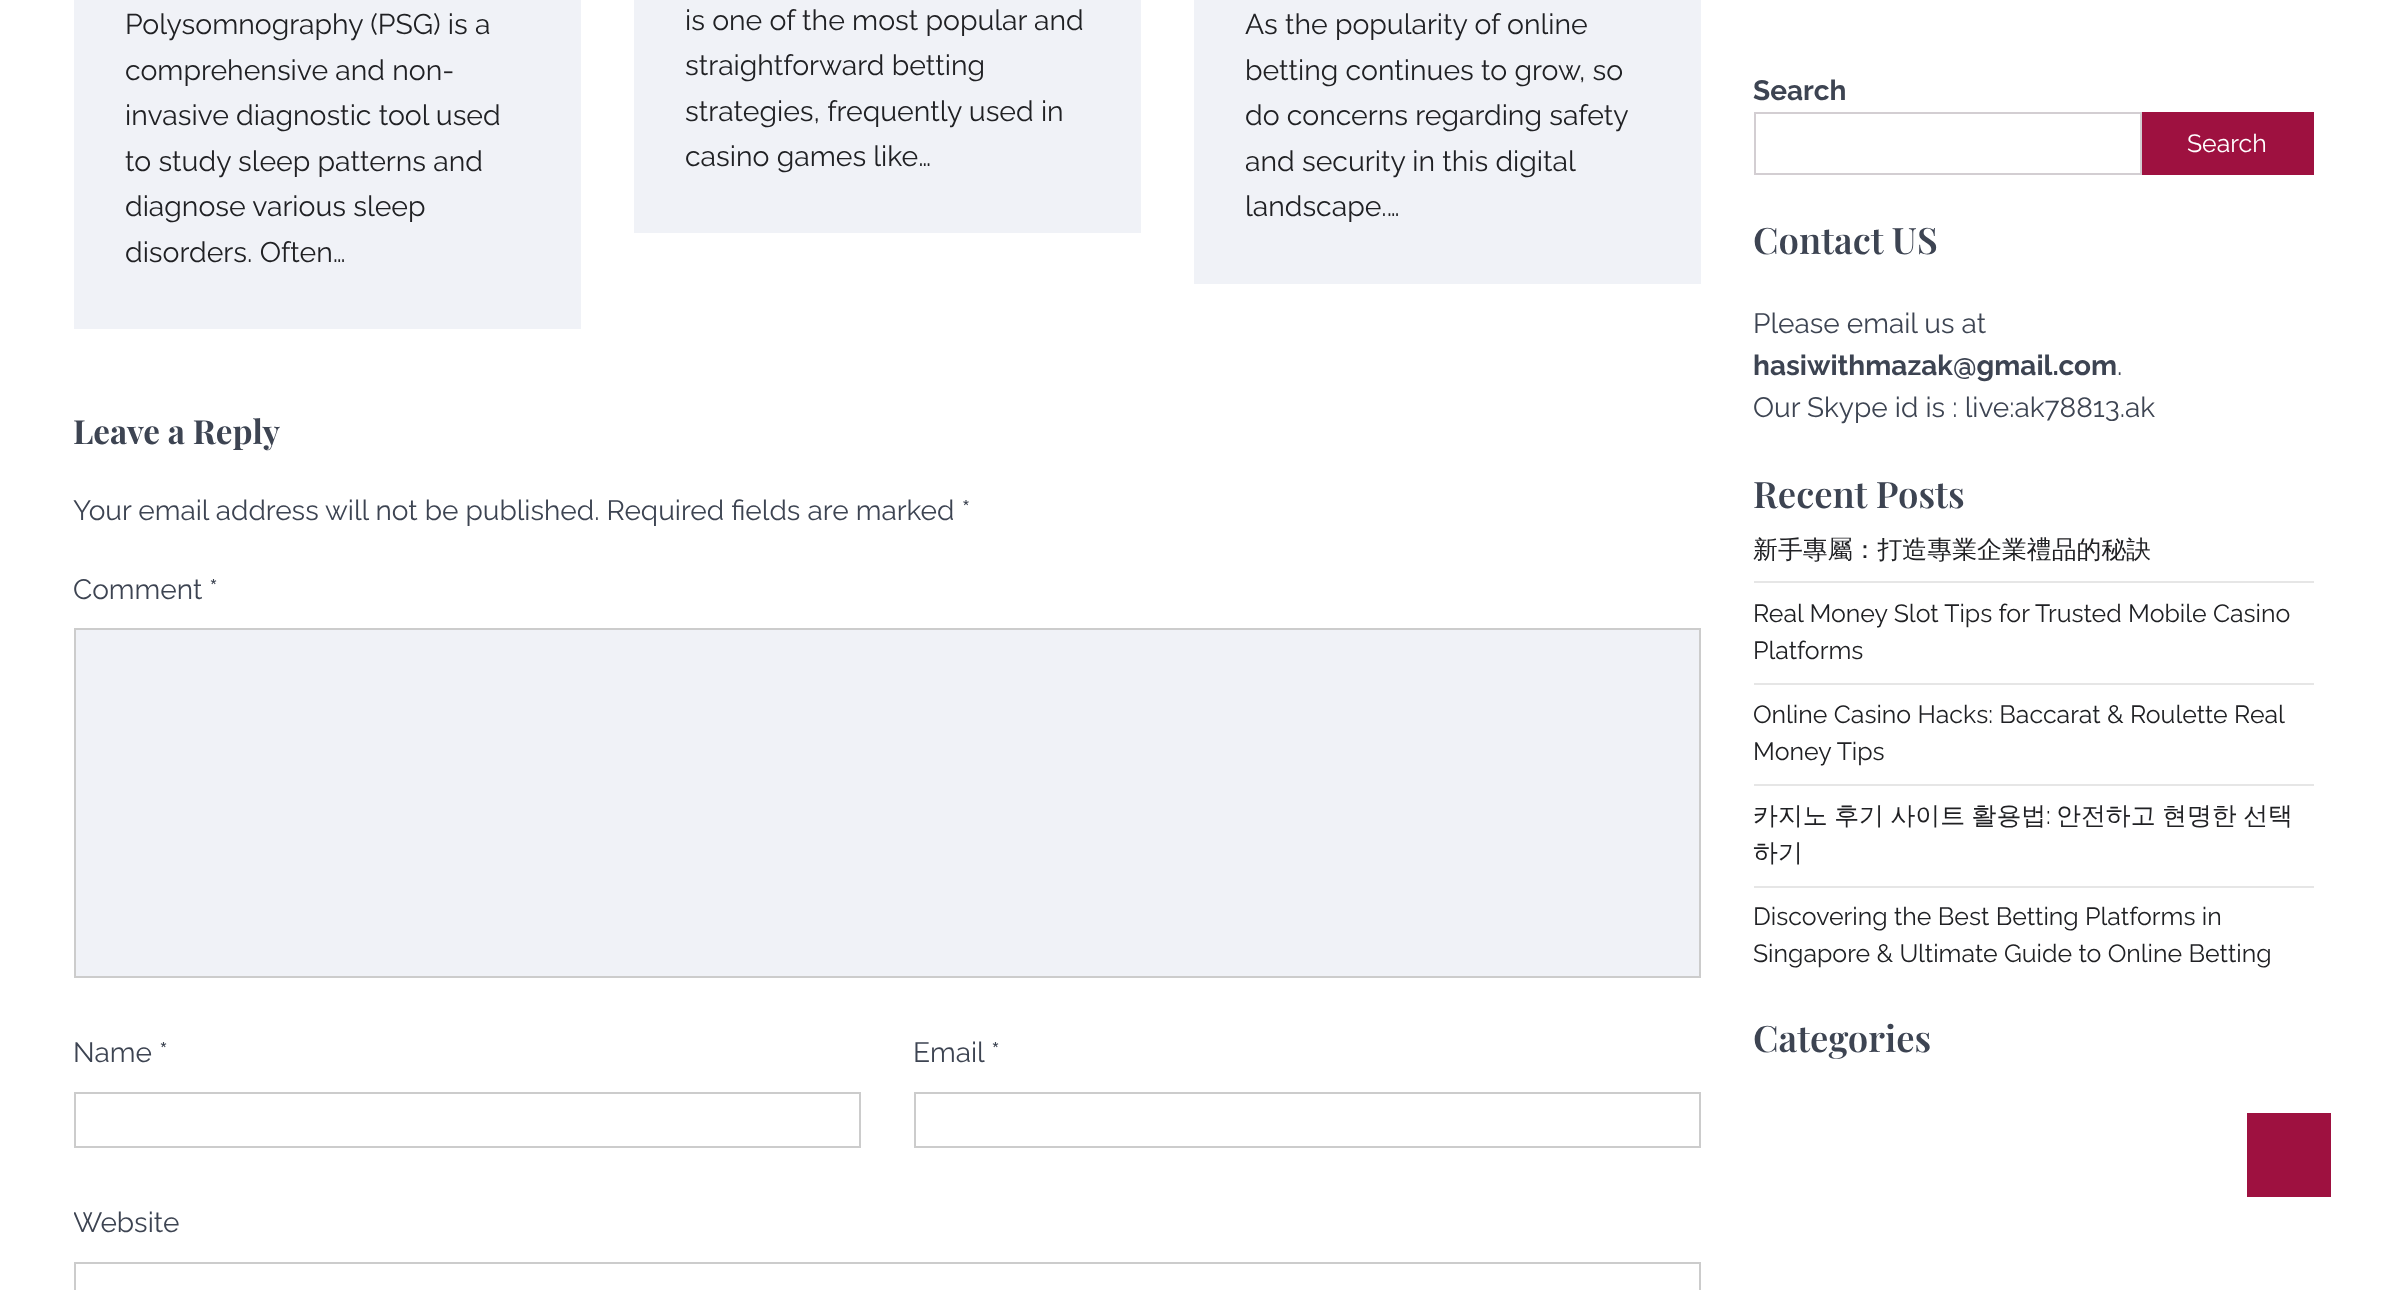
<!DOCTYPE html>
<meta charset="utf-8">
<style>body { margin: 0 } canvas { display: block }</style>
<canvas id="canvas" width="2385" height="1290"></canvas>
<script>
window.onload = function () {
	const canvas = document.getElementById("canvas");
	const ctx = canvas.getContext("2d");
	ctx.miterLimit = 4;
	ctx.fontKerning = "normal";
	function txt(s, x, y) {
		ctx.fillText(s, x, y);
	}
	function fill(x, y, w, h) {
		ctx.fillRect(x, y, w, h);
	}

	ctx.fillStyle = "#FFFFFF";
	fill(0, 0, 2385, 1290);
	ctx.fillStyle = "#F0F2F7";
	fill(74, 0, 507, 329);
	fill(634, 0, 507, 233);
	fill(1194, 0, 507, 284);
	ctx.beginPath();
	ctx.rect(75, 629, 1625, 348);
	ctx.fill();
	ctx.strokeStyle = "#CCCCCC";
	ctx.lineWidth = 2;
	ctx.stroke();
	ctx.strokeRect(75, 1093, 785, 54);
	ctx.strokeRect(915, 1093, 785, 54);
	ctx.strokeRect(75, 1263, 1625, 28);
	ctx.strokeStyle = "#D3CED2";
	ctx.strokeRect(1755, 113, 386, 61);
	ctx.fillStyle = "#9E1140";
	fill(2142, 112, 172, 63);
	ctx.fillStyle = "#E6E6E6";
	fill(1754, 581, 560, 2);
	fill(1754, 683, 560, 2);
	fill(1754, 784, 560, 2);
	fill(1754, 886, 560, 2);
	ctx.fillStyle = "#9E1140";
	fill(2247, 1113, 84, 84);
	ctx.font = "28.4px Raleway";
	ctx.fillStyle = "#202124";
	txt("Polysomnography (PSG) is a", 125, 34);
	txt("comprehensive and non-", 125, 80);
	txt("invasive diagnostic tool used", 125, 125);
	txt("to study sleep patterns and", 125, 171);
	txt("diagnose various sleep", 125, 216);
	txt("disorders. Often…", 125, 262);
	txt("is one of the most popular and", 685, 30);
	txt("straightforward betting", 685, 75);
	txt("strategies, frequently used in", 685, 121);
	txt("casino games like…", 685, 166);
	txt("As the popularity of online", 1245, 34);
	txt("betting continues to grow, so", 1245, 80);
	txt("do concerns regarding safety", 1245, 125);
	txt("and security in this digital", 1245, 171);
	txt("landscape.…", 1245, 216);
	ctx.font = "bold 33.25px Playfair Display";
	ctx.fillStyle = "#3D4452";
	txt("Leave a Reply", 73, 444);
	ctx.font = "28px Raleway";
	txt("Your email address will not be published. Required fields are marked *", 73, 520);
	ctx.save();
	ctx.beginPath();
	ctx.rect(74, 0, 1627, 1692);
	ctx.clip();
	txt("Comment", 73, 599);
	ctx.restore();
	txt("*", 209, 599);
	txt("Name *", 73, 1062);
	txt("Email *", 913, 1062);
	ctx.save();
	ctx.beginPath();
	ctx.rect(74, 0, 1627, 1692);
	ctx.clip();
	txt("Website", 73, 1232);
	ctx.restore();
	ctx.font = "bold 28px Raleway";
	txt("Search", 1753, 100);
	ctx.font = "24.9px Raleway";
	ctx.fillStyle = "#FFFFFF";
	txt("Search", 2187, 152);
	ctx.font = "600 36.5px Playfair Display";
	ctx.fillStyle = "#3D4452";
	txt("Contact US", 1753, 254);
	ctx.font = "28px Raleway";
	txt("Please email us at", 1753, 333);
	ctx.font = "bold 28px Raleway";
	txt("hasiwithmazak@gmail.com", 1753, 375);
	ctx.font = "28px Raleway";
	txt(".", 2117, 375);
	txt("Our Skype id is : live:ak78813.ak", 1753, 417);
	ctx.font = "600 36.5px Playfair Display";
	txt("Recent Posts", 1753, 508);
	ctx.font = "500 24.9px WenQuanYi Zen Hei";
	ctx.fillStyle = "#202124";
	txt("新手專屬：打造專業企業禮品的秘訣", 1753, 558);
	ctx.font = "24.9px Raleway";
	txt("Real Money Slot Tips for Trusted Mobile Casino", 1753, 622);
	txt("Platforms", 1753, 659);
	txt("Online Casino Hacks: Baccarat & Roulette Real", 1753, 723);
	txt("Money Tips", 1753, 760);
	ctx.wordSpacing = "-1px";
	ctx.font = "500 24.9px WenQuanYi Zen Hei";
	txt("카지노 후기 사이트 활용법", 1753, 824);
	ctx.wordSpacing = "0px";
	ctx.font = "24.9px Raleway";
	txt(":", 2046, 824);
	ctx.wordSpacing = "-1px";
	ctx.font = "500 24.9px WenQuanYi Zen Hei";
	txt("안전하고 현명한 선택", 2056, 824);
	ctx.wordSpacing = "0px";
	txt("하기", 1753, 861);
	ctx.font = "24.9px Raleway";
	txt("Discovering the Best Betting Platforms in", 1753, 925);
	txt("Singapore & Ultimate Guide to Online Betting", 1753, 962);
	ctx.font = "600 36.5px Playfair Display";
	ctx.fillStyle = "#3D4452";
	txt("Categories", 1753, 1052);
};
</script>
